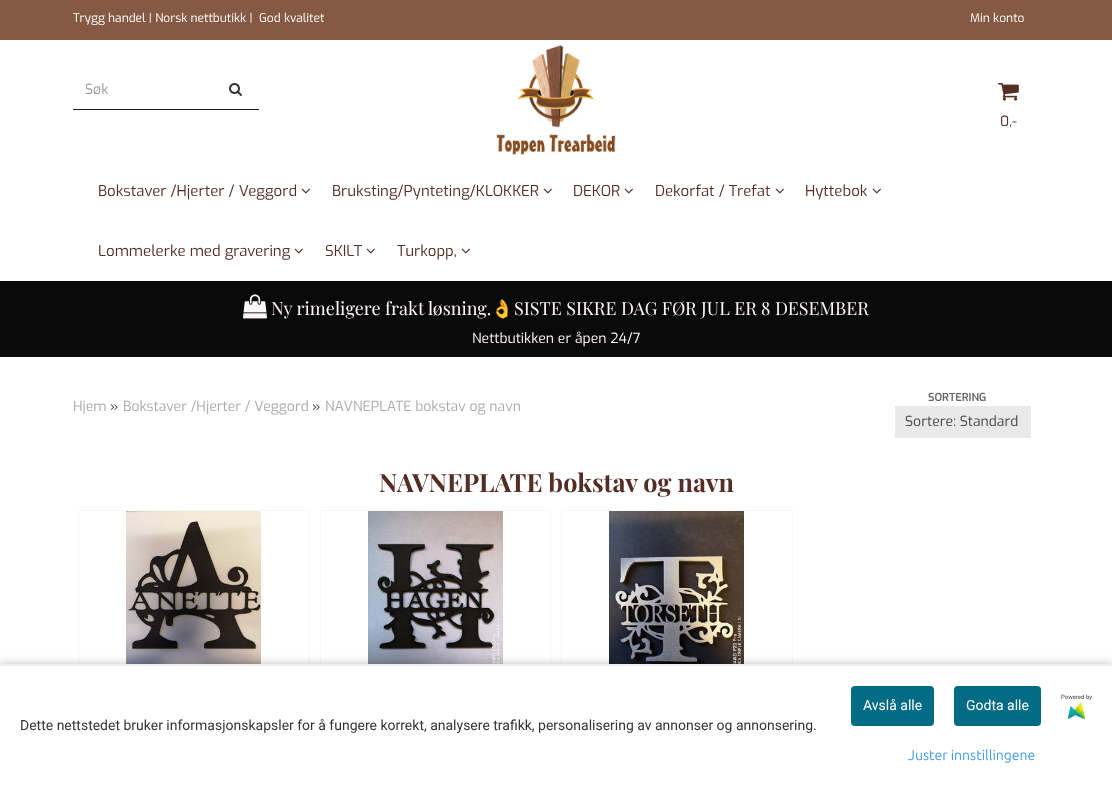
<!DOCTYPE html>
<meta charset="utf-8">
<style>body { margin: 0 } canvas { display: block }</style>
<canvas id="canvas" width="1112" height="786"></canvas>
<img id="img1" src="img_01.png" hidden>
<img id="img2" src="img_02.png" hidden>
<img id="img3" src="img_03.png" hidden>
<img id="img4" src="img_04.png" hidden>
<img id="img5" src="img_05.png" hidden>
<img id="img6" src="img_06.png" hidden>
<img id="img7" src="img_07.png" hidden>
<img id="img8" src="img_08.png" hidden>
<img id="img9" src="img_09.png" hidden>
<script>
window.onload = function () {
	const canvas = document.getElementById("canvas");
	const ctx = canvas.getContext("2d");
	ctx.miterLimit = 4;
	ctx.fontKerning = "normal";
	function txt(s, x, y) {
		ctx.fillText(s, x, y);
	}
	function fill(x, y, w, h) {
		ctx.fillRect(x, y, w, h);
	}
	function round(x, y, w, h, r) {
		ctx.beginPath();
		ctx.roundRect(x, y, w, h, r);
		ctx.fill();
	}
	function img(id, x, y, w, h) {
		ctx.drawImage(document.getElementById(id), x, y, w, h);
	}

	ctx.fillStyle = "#FFFFFF";
	fill(0, 0, 1112, 786);
	ctx.fillStyle = "#865944";
	fill(0, 0, 1112, 40);
	ctx.fillStyle = "#232323";
	fill(73, 109, 186, 1);
	img("img1", 229, 83, 13, 13);
	img("img2", 496, 44, 120, 111);
	img("img3", 998, 83, 21, 18);
	img("img4", 301, 188, 9, 6);
	img("img4", 543, 188, 9, 6);
	img("img4", 624, 188, 9, 6);
	img("img4", 775, 188, 9, 6);
	img("img4", 872, 188, 9, 6);
	img("img4", 294, 248, 9, 6);
	img("img4", 366, 248, 9, 6);
	img("img4", 461, 248, 9, 6);
	ctx.fillStyle = "#0A0A0A";
	fill(0, 281, 1112, 76);
	img("img5", 243, 294, 24, 25);
	ctx.fillStyle = "#E9E9E9";
	fill(895, 406, 136, 32);
	ctx.strokeStyle = "#F8F8F8";
	ctx.strokeRect(78.5, 510.5, 231, 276);
	img("img6", 126, 511, 135, 153);
	ctx.strokeRect(320.5, 510.5, 230, 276);
	img("img7", 368, 511, 135, 153);
	ctx.strokeRect(561.5, 510.5, 231, 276);
	img("img8", 609, 511, 135, 153);
	ctx.fillStyle = "rgba(0, 0, 0, 0.25)";
	ctx.filter = "blur(5px)";
	ctx.beginPath();
	ctx.rect(0, 664, 1112, 122);
	ctx.fill();
	ctx.filter = "none";
	ctx.fillStyle = "#FFFFFF";
	fill(0, 666, 1112, 120);
	ctx.fillStyle = "#EEEEEE";
	fill(0, 664, 1112, 2);
	ctx.fillStyle = "#026B85";
	round(851, 686, 83, 40, 4);
	round(954, 686, 87, 40, 4);
	img("img9", 1068, 702, 17, 17);
	ctx.font = "12px Exo";
	ctx.fillStyle = "#FFFFFF";
	txt("Trygg handel | Norsk nettbutikk |", 73, 22);
	txt("God kvalitet", 259, 22);
	txt("Min konto", 970, 22);
	ctx.font = "14px Exo";
	ctx.fillStyle = "#999999";
	txt("Søk", 85, 94);
	ctx.fillStyle = "#542E25";
	txt("0,-", 1000, 126);
	ctx.font = "15px Exo";
	txt("Bokstaver /Hjerter / Veggord", 98, 196);
	txt("Bruksting/Pynteting/KLOKKER", 332, 196);
	txt("DEKOR", 573, 196);
	txt("Dekorfat / Trefat", 655, 196);
	txt("Hyttebok", 805, 196);
	txt("Lommelerke med gravering", 98, 256);
	txt("SKILT", 325, 256);
	txt("Turkopp,", 397, 256);
	ctx.font = "18px Playfair Display";
	ctx.fillStyle = "#FFF6F8";
	txt("Ny rimeligere frakt løsning.", 271, 315);
	ctx.font = "18px Noto Color Emoji";
	txt("👌", 491, 315);
	ctx.font = "18px Playfair Display";
	txt("SISTE SIKRE DAG FØR JUL ER 8 DESEMBER", 514, 315);
	ctx.font = "14px Exo";
	txt("Nettbutikken er åpen 24/7", 472, 343);
	ctx.fillStyle = "#AAAAAA";
	txt("Hjem", 73, 411);
	ctx.fillStyle = "#333333";
	txt("»", 110, 411);
	ctx.fillStyle = "#AAAAAA";
	txt("Bokstaver /Hjerter / Veggord", 123, 411);
	ctx.fillStyle = "#333333";
	txt("»", 312, 411);
	ctx.fillStyle = "#AAAAAA";
	txt("NAVNEPLATE bokstav og navn", 325, 411);
	ctx.font = "600 11px Exo";
	ctx.fillStyle = "#666666";
	txt("SORTERING", 928, 401);
	ctx.font = "14px Exo";
	ctx.fillStyle = "#444444";
	txt("Sortere: Standard", 905, 426);
	ctx.font = "bold 25.25px Playfair Display";
	ctx.fillStyle = "#542E25";
	txt("NAVNEPLATE bokstav og navn", 379, 492);
	ctx.font = "14px Roboto";
	ctx.fillStyle = "#333333";
	txt("Dette nettstedet bruker informasjonskapsler for å fungere korrekt, analysere trafikk, personalisering av annonser og annonsering.", 20, 730);
	ctx.fillStyle = "#FFFFFF";
	txt("Avslå alle", 863, 710);
	txt("Godta alle", 966, 710);
	ctx.font = "6px Roboto";
	ctx.fillStyle = "#333333";
	txt("Powered by", 1061, 699);
	ctx.font = "14px Ubuntu";
	ctx.fillStyle = "#409AEF";
	txt("Juster innstillingene", 908, 760);
};
</script>
